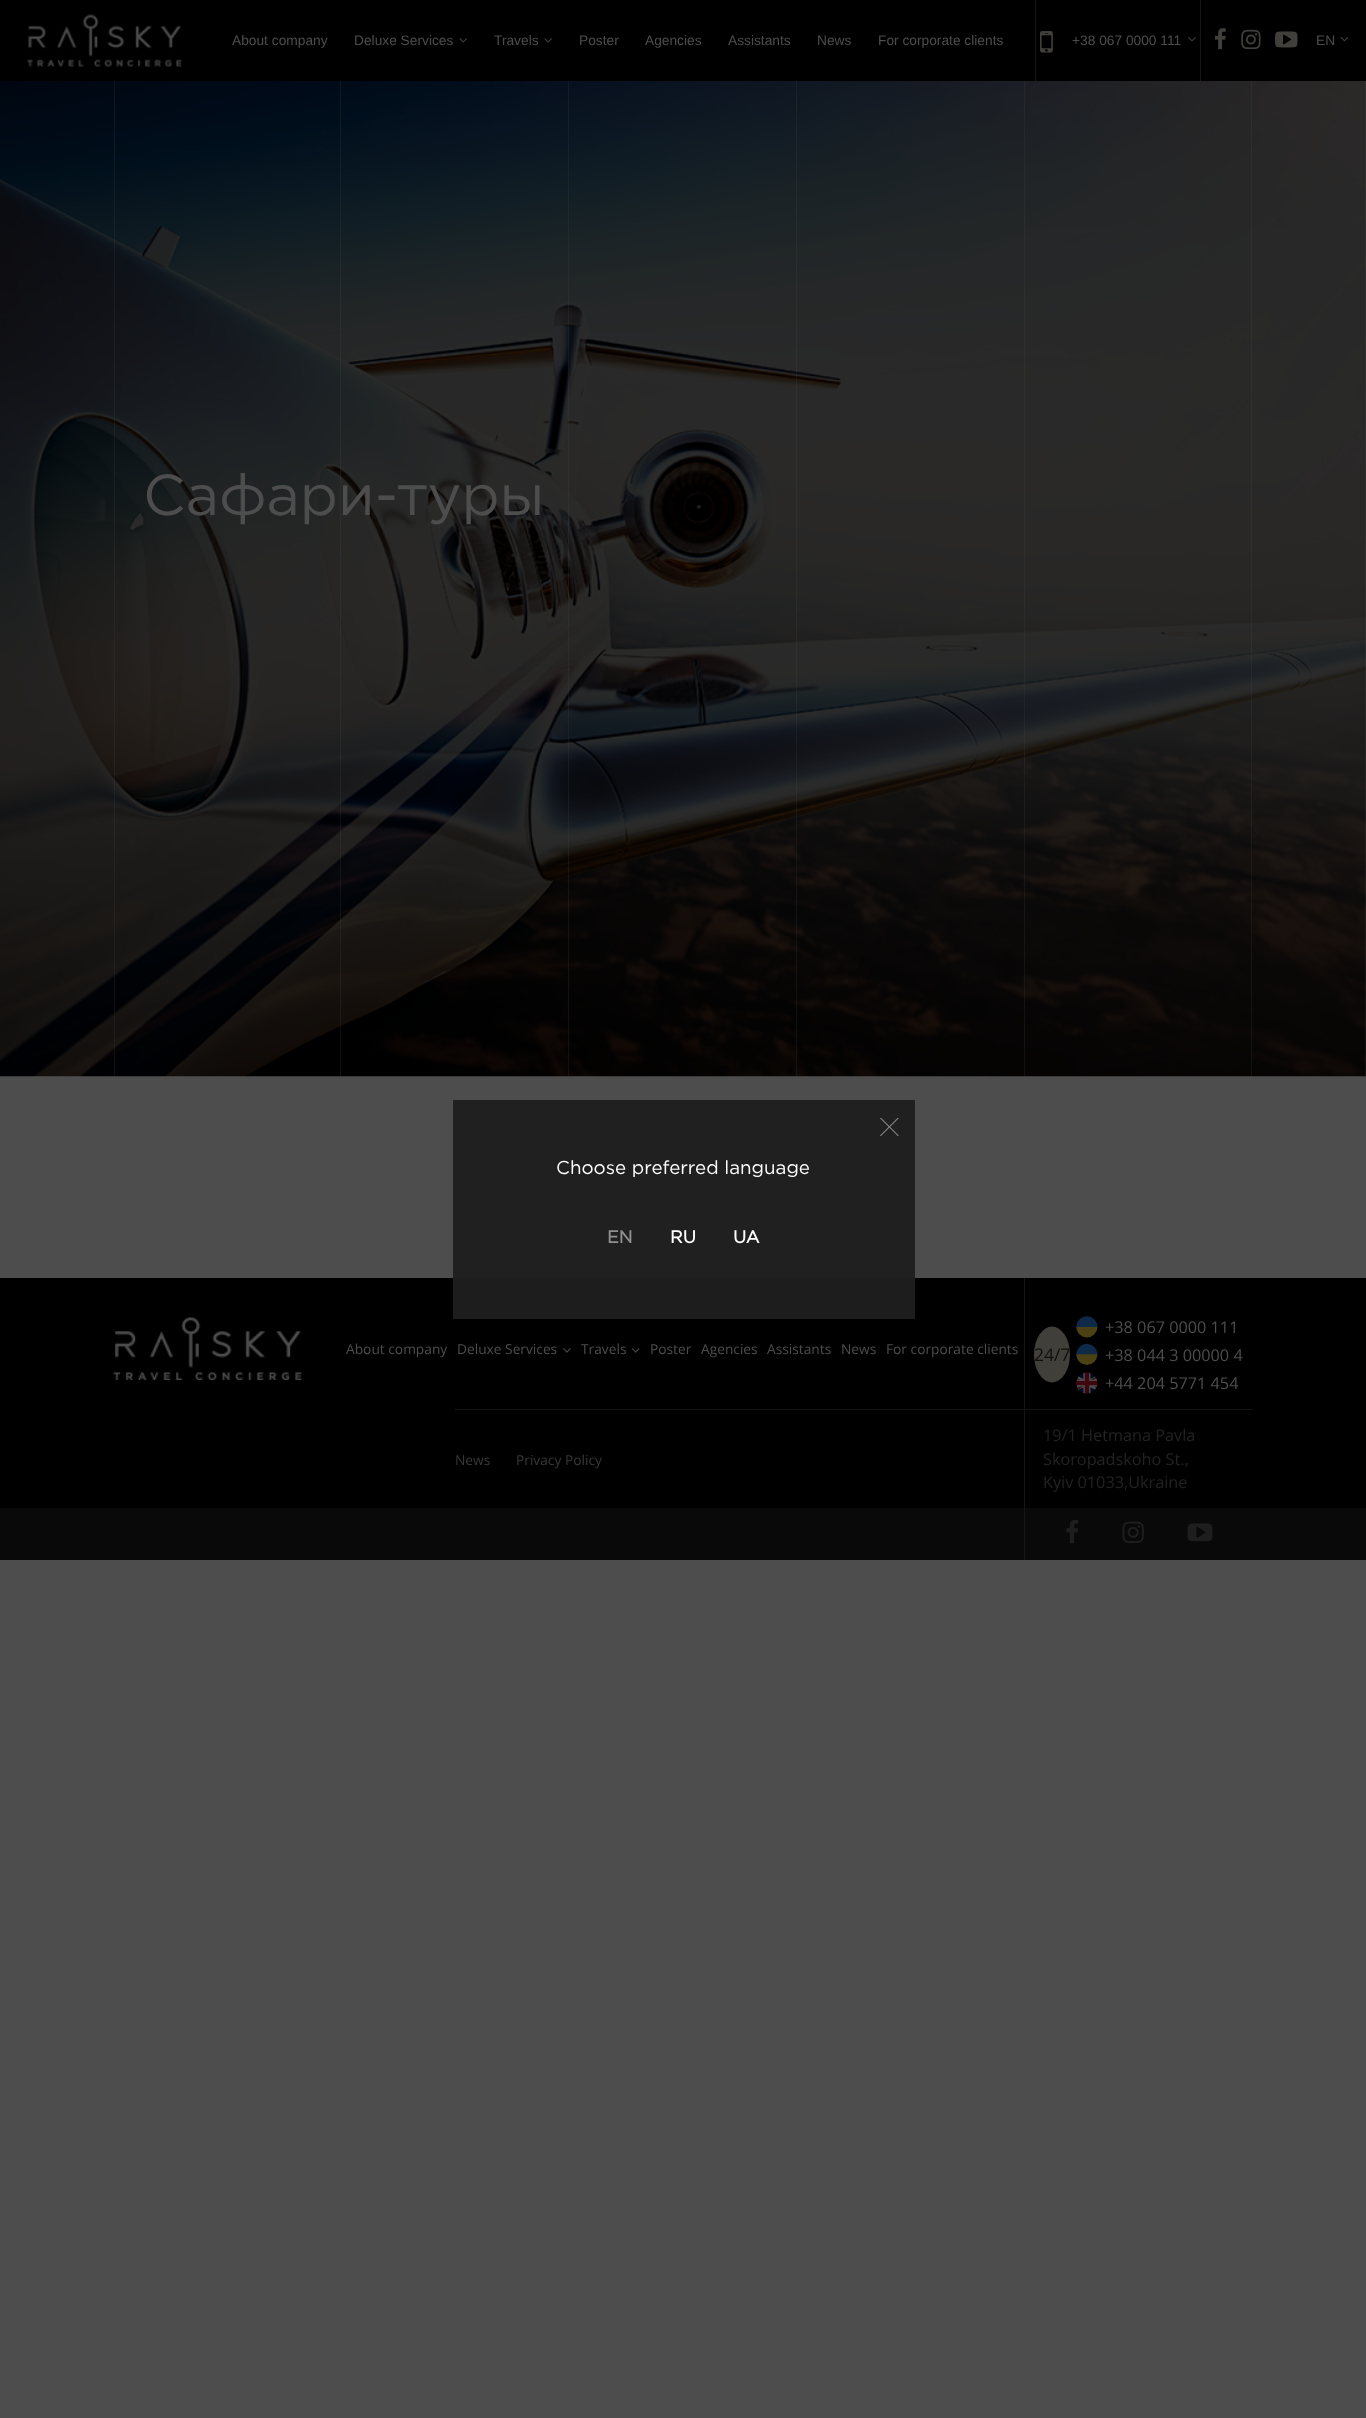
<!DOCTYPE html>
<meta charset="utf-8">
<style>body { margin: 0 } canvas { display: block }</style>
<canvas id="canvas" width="1366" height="2418"></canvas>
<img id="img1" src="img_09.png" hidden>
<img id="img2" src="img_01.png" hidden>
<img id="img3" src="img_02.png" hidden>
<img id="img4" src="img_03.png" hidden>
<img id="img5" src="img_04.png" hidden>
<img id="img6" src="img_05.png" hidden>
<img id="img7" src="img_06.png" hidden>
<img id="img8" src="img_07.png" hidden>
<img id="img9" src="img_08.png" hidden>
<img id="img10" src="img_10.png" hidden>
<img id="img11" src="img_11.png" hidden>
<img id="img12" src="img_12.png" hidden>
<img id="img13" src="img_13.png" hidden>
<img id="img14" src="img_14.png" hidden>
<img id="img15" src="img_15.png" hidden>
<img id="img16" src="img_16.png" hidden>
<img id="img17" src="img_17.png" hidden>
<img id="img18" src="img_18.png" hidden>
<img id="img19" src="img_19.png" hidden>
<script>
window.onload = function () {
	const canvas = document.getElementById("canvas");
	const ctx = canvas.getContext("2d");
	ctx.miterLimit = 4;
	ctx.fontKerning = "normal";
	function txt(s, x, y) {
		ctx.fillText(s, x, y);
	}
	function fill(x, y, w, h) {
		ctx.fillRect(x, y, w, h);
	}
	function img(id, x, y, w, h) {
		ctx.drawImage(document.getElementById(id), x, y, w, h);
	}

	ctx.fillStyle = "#4D4D4D";
	fill(0, 0, 1366, 2418);
	ctx.fillStyle = "#202020";
	fill(453, 1100, 462, 178);
	img("img1", 0, 81, 1366, 996);
	ctx.fillStyle = "rgba(77, 77, 77, 0.2)";
	fill(340, 76, 1, 1000);
	fill(114, 76, 1, 1000);
	fill(568, 76, 1, 1000);
	fill(796, 76, 1, 1000);
	fill(1024, 76, 1, 1000);
	fill(1251, 76, 1, 1000);
	fill(1365, 76, 1, 1000);
	ctx.fillStyle = "#000000";
	fill(0, 0, 1366, 81);
	img("img2", 27, 14, 155, 53);
	ctx.fillStyle = "#141414";
	fill(1035, 0, 1, 81);
	img("img3", 459, 38, 8, 5);
	img("img3", 544, 38, 8, 5);
	fill(1200, 0, 1, 81);
	img("img4", 1040, 31, 13, 22);
	img("img5", 1188, 37, 8, 5);
	img("img6", 1214, 28, 12, 22);
	img("img7", 1241, 29, 20, 21);
	img("img8", 1275, 31, 23, 17);
	img("img9", 1340, 37, 9, 5);
	ctx.fillStyle = "#000000";
	fill(0, 1278, 1366, 230);
	ctx.fillStyle = "#1D1D1D";
	fill(453, 1278, 462, 41);
	img("img10", 113, 1317, 189, 63);
	ctx.fillStyle = "#141414";
	fill(1024, 1278, 1, 131);
	img("img11", 563, 1348, 8, 5);
	img("img12", 631, 1348, 9, 5);
	ctx.fillStyle = "#413F39";
	ctx.beginPath();
	ctx.ellipse(1052, 1354.5, 18, 28, 0, 0, Math.PI * 2);
	ctx.fill();
	img("img13", 1076, 1316, 22, 22);
	img("img14", 1076, 1343, 22, 22);
	img("img15", 1076, 1372, 22, 22);
	ctx.fillStyle = "#141414";
	fill(455, 1409, 798, 1);
	fill(1024, 1409, 1, 99);
	ctx.fillStyle = "#090909";
	fill(0, 1508, 1366, 52);
	ctx.fillStyle = "#171717";
	fill(1024, 1508, 1, 52);
	img("img16", 1066, 1519, 13, 25);
	img("img17", 1122, 1521, 22, 22);
	img("img18", 1187, 1523, 26, 19);
	img("img19", 880, 1118, 19, 18);
	ctx.font = "13.75px Liberation Sans";
	ctx.fillStyle = "#4D4D4D";
	txt("About company", 232, 45);
	txt("Deluxe Services", 354, 45);
	txt("Travels", 494, 45);
	txt("Poster", 579, 45);
	txt("Agencies", 645, 45);
	txt("Assistants", 728, 45);
	txt("News", 817, 45);
	txt("For corporate clients", 878, 45);
	txt("+38 067 0000 111", 1072, 45);
	txt("EN", 1316, 45);
	ctx.font = "57.5px Gotham";
	txt("Сафари-туры", 143, 515);
	ctx.font = "13.75px Open Sans";
	txt("About company", 346, 1354);
	txt("Deluxe Services", 457, 1354);
	txt("Travels", 581, 1354);
	txt("Poster", 650, 1354);
	txt("Agencies", 701, 1354);
	txt("Assistants", 767, 1354);
	txt("News", 841, 1354);
	txt("For corporate clients", 886, 1354);
	ctx.font = "17.5px Open Sans";
	ctx.fillStyle = "#0F0F0F";
	txt("24/7", 1034, 1361);
	ctx.font = "16.25px Open Sans";
	ctx.fillStyle = "#4D4D4D";
	txt("+38 067 0000 111", 1105, 1333);
	txt("+38 044 3 00000 4", 1105, 1361);
	txt("+44 204 5771 454", 1105, 1389);
	ctx.font = "13.75px Open Sans";
	ctx.fillStyle = "#383838";
	txt("News", 455, 1465);
	txt("Privacy Policy", 516, 1465);
	ctx.font = "16.25px Open Sans";
	ctx.fillStyle = "#222222";
	txt("19/1 Hetmana Pavla", 1043, 1441);
	txt("Skoropadskoho St.,", 1043, 1465);
	txt("Kyiv 01033,Ukraine", 1043, 1488);
	ctx.font = "18.75px Gotham";
	ctx.fillStyle = "#FFFFFF";
	txt("Choose preferred language", 556, 1174);
	ctx.font = "bold 17.5px Gotham";
	ctx.fillStyle = "#909090";
	txt("EN", 607, 1243);
	ctx.fillStyle = "#FFFFFF";
	txt("RU", 670, 1243);
	txt("UA", 733, 1243);
};
</script>
